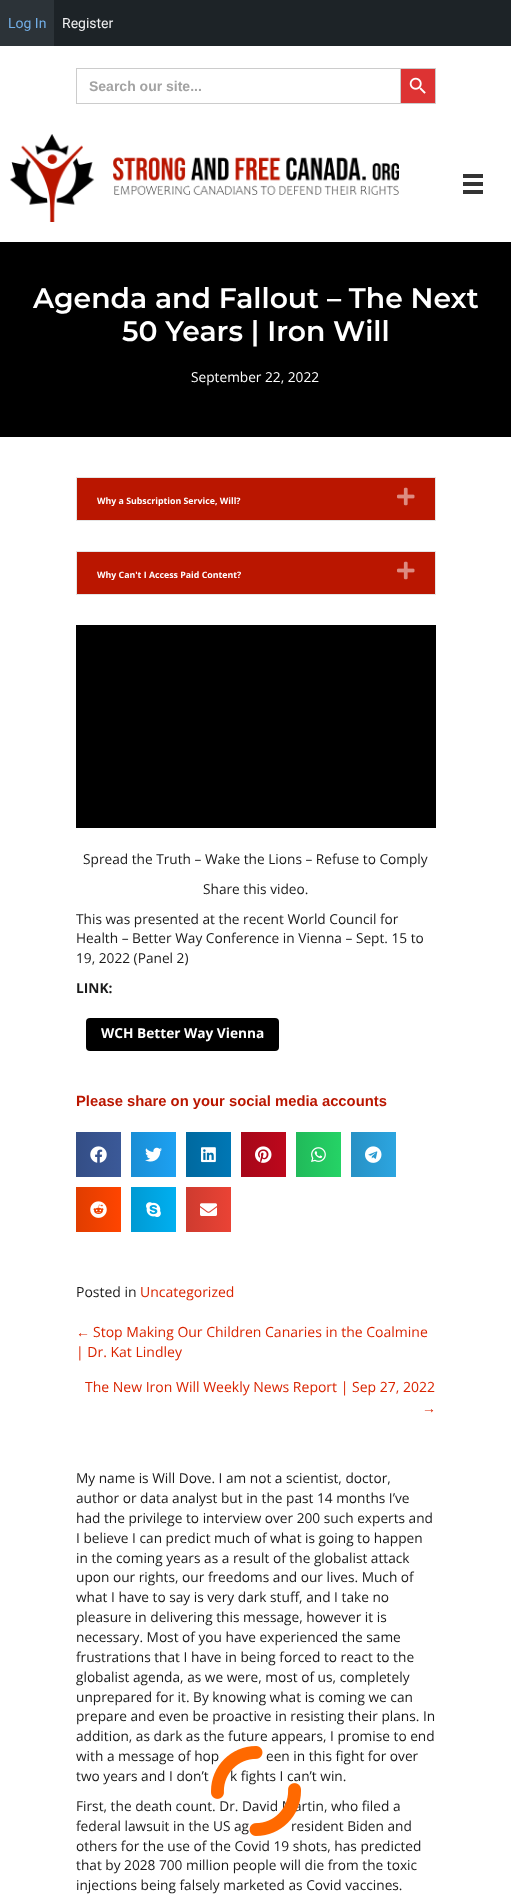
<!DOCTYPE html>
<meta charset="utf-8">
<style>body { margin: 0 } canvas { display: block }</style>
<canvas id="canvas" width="511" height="1894"></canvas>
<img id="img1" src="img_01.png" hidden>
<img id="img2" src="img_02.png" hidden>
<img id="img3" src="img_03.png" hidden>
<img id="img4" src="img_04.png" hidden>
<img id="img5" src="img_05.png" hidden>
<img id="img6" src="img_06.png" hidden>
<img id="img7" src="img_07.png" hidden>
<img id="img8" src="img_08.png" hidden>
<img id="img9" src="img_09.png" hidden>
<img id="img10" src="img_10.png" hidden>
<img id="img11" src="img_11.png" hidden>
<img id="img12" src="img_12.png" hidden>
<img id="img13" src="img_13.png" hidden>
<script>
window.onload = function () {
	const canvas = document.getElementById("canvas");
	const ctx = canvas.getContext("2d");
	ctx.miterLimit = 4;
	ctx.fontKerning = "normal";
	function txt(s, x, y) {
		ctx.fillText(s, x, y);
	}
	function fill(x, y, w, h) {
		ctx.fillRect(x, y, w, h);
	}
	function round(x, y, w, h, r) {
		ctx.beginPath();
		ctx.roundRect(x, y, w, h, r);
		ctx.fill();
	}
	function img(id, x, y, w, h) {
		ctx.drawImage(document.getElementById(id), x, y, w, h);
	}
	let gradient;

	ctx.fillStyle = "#FFFFFF";
	fill(0, 0, 511, 1894);
	ctx.fillStyle = "#1D2327";
	fill(54, 0, 457, 46);
	ctx.fillStyle = "#2C3338";
	fill(0, 0, 54, 46);
	ctx.fillStyle = "#CCCCCC";
	fill(76, 68, 324, 1);
	fill(76, 103, 324, 1);
	fill(76, 68, 1, 36);
	ctx.fillStyle = "#DD3333";
	ctx.beginPath();
	ctx.rect(400.5, 68.5, 35, 35);
	ctx.fill();
	ctx.strokeStyle = "#CCCCCC";
	ctx.stroke();
	img("img1", 409, 77, 17, 17);
	img("img2", 10, 134, 389, 88);
	ctx.fillStyle = "#333333";
	fill(463, 174, 20, 4);
	fill(463, 182, 20, 4);
	fill(463, 190, 20, 4);
	ctx.fillStyle = "#000000";
	fill(0, 242, 511, 195);
	ctx.strokeStyle = "#E5E5E5";
	ctx.strokeRect(76.5, 477.5, 359, 43);
	ctx.fillStyle = "#BA1600";
	fill(77, 478, 358, 42);
	img("img3", 397, 487, 18, 19);
	ctx.strokeRect(76.5, 551.5, 359, 43);
	fill(77, 552, 358, 42);
	img("img3", 397, 561, 18, 19);
	ctx.fillStyle = "#000000";
	fill(76, 625, 360, 203);
	round(86, 1018, 193, 33, 4);
	gradient = ctx.createLinearGradient(76, 1155, 121, 1155);
	gradient.addColorStop(0, "#344E86");
	gradient.addColorStop(1, "#3B5998");
	ctx.fillStyle = gradient;
	fill(76, 1132, 45, 45);
	img("img4", 90, 1146, 17, 17);
	gradient = ctx.createLinearGradient(131, 1155, 176, 1155);
	gradient.addColorStop(0, "#1A8ED5");
	gradient.addColorStop(1, "#1DA1F2");
	ctx.fillStyle = gradient;
	fill(131, 1132, 45, 45);
	img("img5", 145, 1147, 17, 15);
	gradient = ctx.createLinearGradient(186, 1155, 231, 1155);
	gradient.addColorStop(0, "#00699F");
	gradient.addColorStop(1, "#0077B5");
	ctx.fillStyle = gradient;
	fill(186, 1132, 45, 45);
	img("img6", 201, 1147, 15, 16);
	gradient = ctx.createLinearGradient(241, 1155, 286, 1155);
	gradient.addColorStop(0, "#A60719");
	gradient.addColorStop(1, "#BD081C");
	ctx.fillStyle = gradient;
	fill(241, 1132, 45, 45);
	img("img7", 255, 1146, 17, 17);
	gradient = ctx.createLinearGradient(296, 1155, 341, 1155);
	gradient.addColorStop(0, "#21BA5A");
	gradient.addColorStop(1, "#25D366");
	ctx.fillStyle = gradient;
	fill(296, 1132, 45, 45);
	img("img8", 311, 1147, 15, 15);
	gradient = ctx.createLinearGradient(351, 1155, 396, 1155);
	gradient.addColorStop(0, "#2791C5");
	gradient.addColorStop(1, "#2CA5E0");
	ctx.fillStyle = gradient;
	fill(351, 1132, 45, 45);
	img("img9", 365, 1146, 17, 17);
	gradient = ctx.createLinearGradient(76, 1210, 121, 1210);
	gradient.addColorStop(0, "#E03D00");
	gradient.addColorStop(1, "#FF4500");
	ctx.fillStyle = gradient;
	fill(76, 1187, 45, 45);
	img("img10", 90, 1201, 17, 17);
	gradient = ctx.createLinearGradient(131, 1210, 176, 1210);
	gradient.addColorStop(0, "#009AD3");
	gradient.addColorStop(1, "#00AFF0");
	ctx.fillStyle = gradient;
	fill(131, 1187, 45, 45);
	img("img11", 146, 1202, 15, 15);
	gradient = ctx.createLinearGradient(186, 1210, 231, 1210);
	gradient.addColorStop(0, "#CE3B2F");
	gradient.addColorStop(1, "#EA4335");
	ctx.fillStyle = gradient;
	fill(186, 1187, 45, 45);
	img("img12", 200, 1203, 17, 13);
	ctx.font = "14px Roboto";
	ctx.fillStyle = "#72AEE6";
	txt("Log In", 8, 28);
	ctx.fillStyle = "#F0F0F1";
	txt("Register", 62, 28);
	ctx.font = "bold 14px Liberation Sans";
	ctx.fillStyle = "#A3A3A3";
	txt("Search our site...", 89, 91);
	ctx.font = "600 28.25px Montserrat";
	ctx.fillStyle = "#FFFFFF";
	txt("Agenda and Fallout – The Next", 33, 308);
	txt("50 Years | Iron Will", 122, 341);
	ctx.font = "13.7px Open Sans";
	txt("September 22, 2022", 191, 382);
	ctx.font = "bold 8.8px Open Sans";
	txt("Why a Subscription Service, Will?", 97, 504);
	txt("Why Can't I Access Paid Content?", 97, 578);
	ctx.font = "13.7px Open Sans";
	ctx.fillStyle = "#1A1A1A";
	txt("Spread the Truth – Wake the Lions – Refuse to Comply", 83, 864);
	txt("Share this video.", 203, 894);
	txt("This was presented at the recent World Council for", 76, 924);
	txt("Health – Better Way Conference in Vienna – Sept. 15 to", 76, 943);
	txt("19, 2022 (Panel 2)", 76, 963);
	ctx.font = "bold 13.7px Open Sans";
	txt("LINK:", 76, 993);
	ctx.fillStyle = "#FFFFFF";
	txt("WCH Better Way Vienna", 101, 1038);
	ctx.font = "bold 14.8px Liberation Sans";
	ctx.fillStyle = "#BA1600";
	txt("Please share on your social media accounts", 76, 1106);
	ctx.font = "14px Open Sans";
	ctx.fillStyle = "#1A1A1A";
	txt("Posted in", 76, 1297);
	ctx.fillStyle = "#D92400";
	txt("Uncategorized", 140, 1297);
	ctx.font = "14px Liberation Sans";
	txt("←", 76, 1337);
	ctx.font = "14px Open Sans";
	txt("Stop Making Our Children Canaries in the Coalmine", 93, 1337);
	txt("| Dr. Kat Lindley", 76, 1357);
	txt("The New Iron Will Weekly News Report | Sep 27, 2022", 85, 1392);
	ctx.font = "14px Liberation Sans";
	txt("→", 422, 1413);
	ctx.font = "13.7px Open Sans";
	ctx.fillStyle = "#1A1A1A";
	txt("My name is Will Dove. I am not a scientist, doctor,", 76, 1483);
	txt("author or data analyst but in the past 14 months I’ve", 76, 1503);
	txt("had the privilege to interview over 200 such experts and", 76, 1523);
	txt("I believe I can predict much of what is going to happen", 76, 1543);
	txt("in the coming years as a result of the globalist attack", 76, 1563);
	txt("upon our rights, our freedoms and our lives. Much of", 76, 1582);
	txt("what I have to say is very dark stuff, and I take no", 76, 1602);
	txt("pleasure in delivering this message, however it is", 76, 1622);
	txt("necessary. Most of you have experienced the same", 76, 1642);
	txt("frustrations that I have in being forced to react to the", 76, 1662);
	txt("globalist agenda, as we were, most of us, completely", 76, 1682);
	txt("unprepared for it. By knowing what is coming we can", 76, 1702);
	txt("prepare and even be proactive in resisting their plans. In", 76, 1721);
	txt("addition, as dark as the future appears, I promise to end", 76, 1741);
	txt("with a message of hop", 76, 1761);
	txt("een in this fight for over", 266, 1761);
	txt("two years and I don’t", 76, 1781);
	txt("k fights I can’t win.", 230, 1781);
	txt("First, the death count. Dr. David Martin, who filed a", 76, 1811);
	txt("federal lawsuit in the US ag", 76, 1831);
	txt("resident Biden and", 291, 1831);
	txt("others for the use of the Covid 19 shots, has predicted", 76, 1851);
	txt("that by 2028 700 million people will die from the toxic", 76, 1870);
	txt("injections being falsely marketed as Covid vaccines.", 76, 1890);
	img("img13", 211, 1746, 90, 90);
};
</script>
